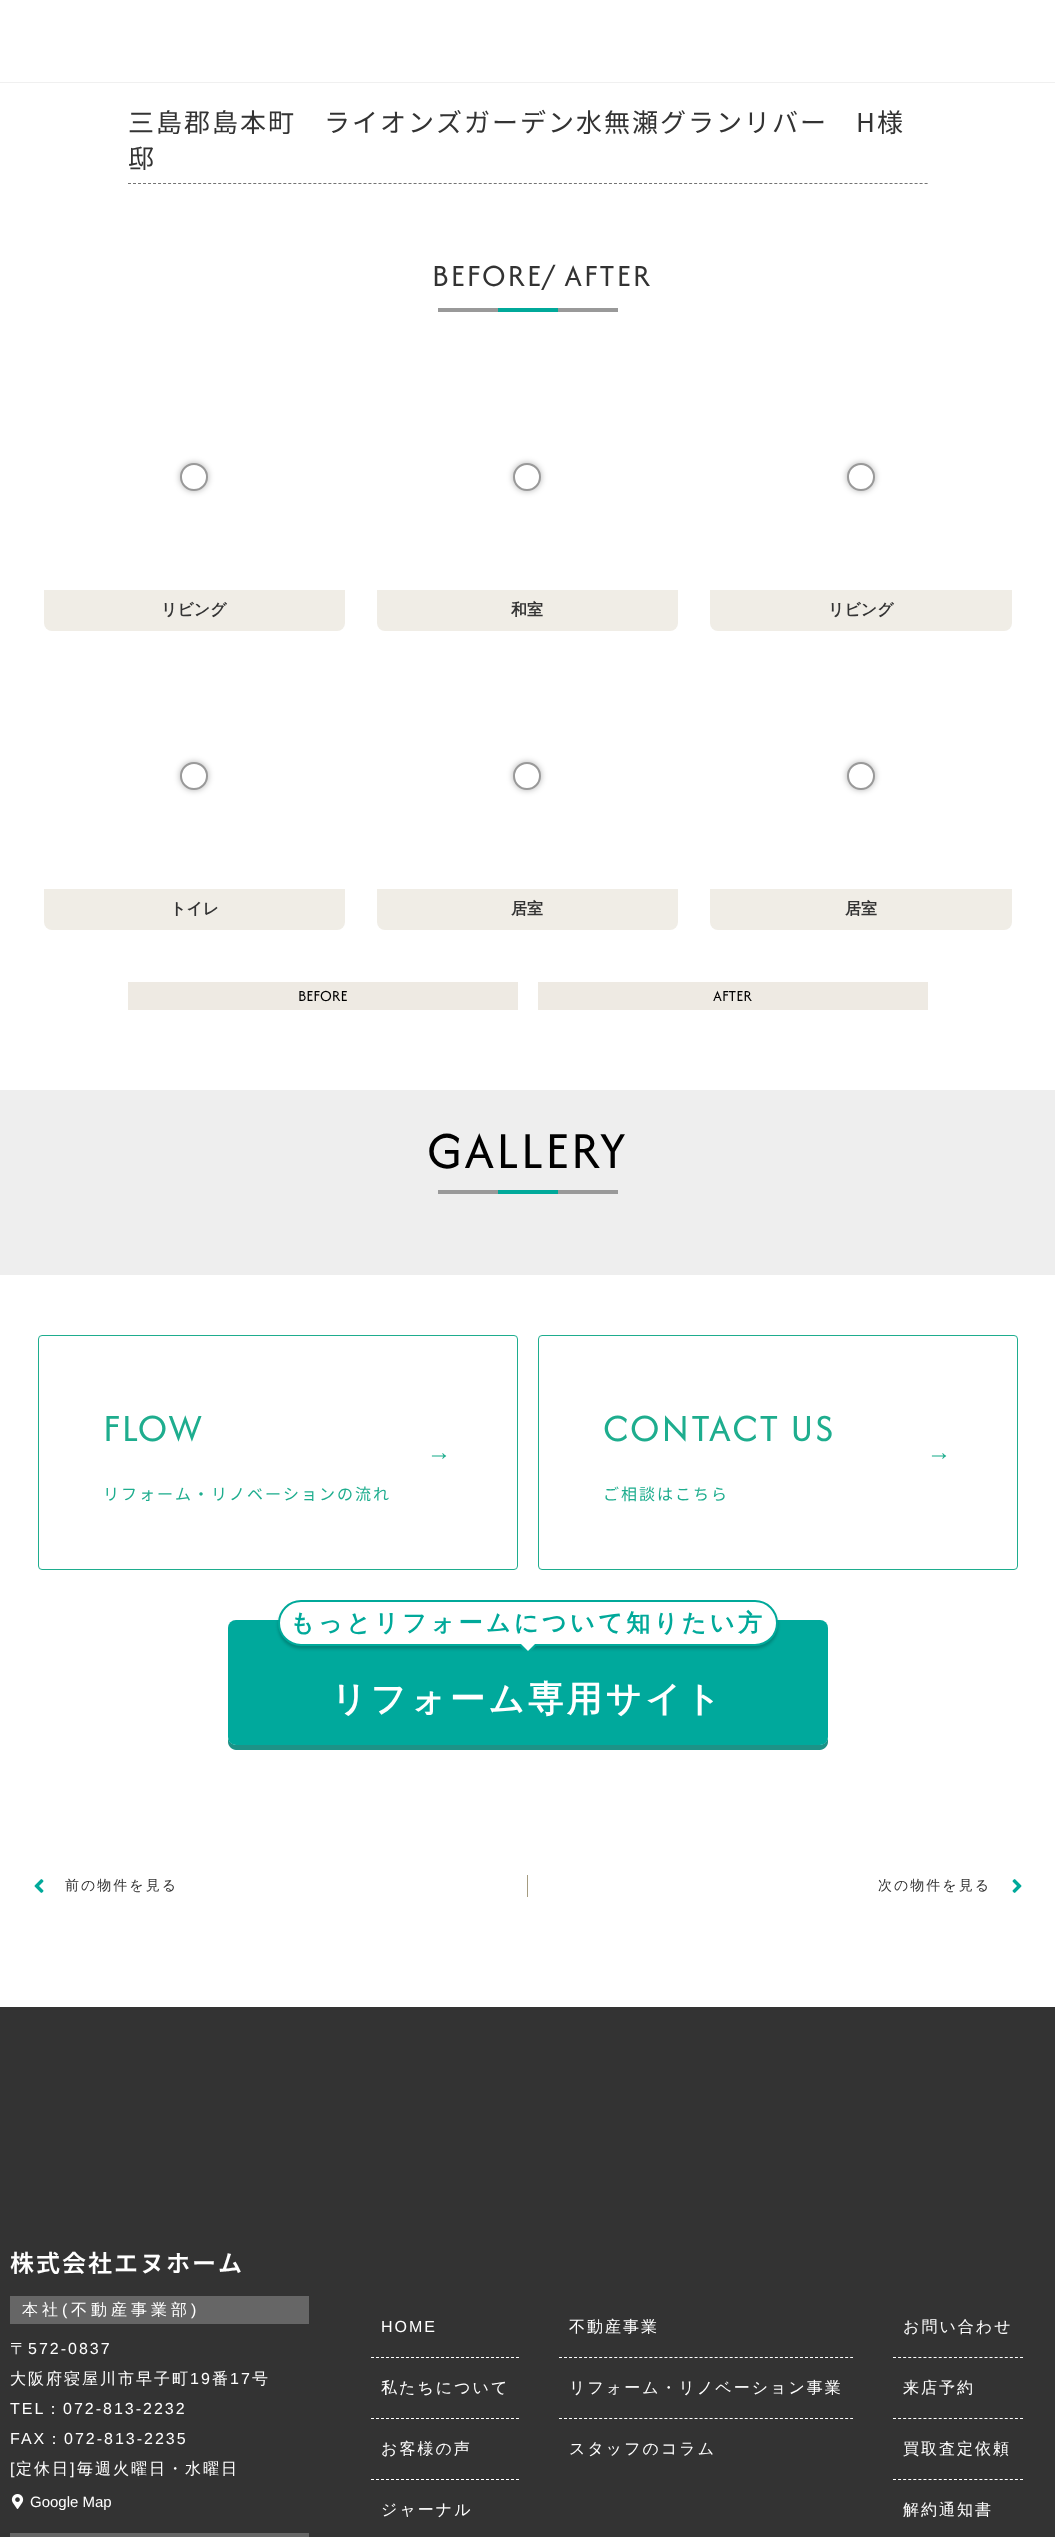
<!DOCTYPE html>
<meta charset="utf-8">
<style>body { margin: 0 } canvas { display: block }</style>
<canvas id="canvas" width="1055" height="2537"></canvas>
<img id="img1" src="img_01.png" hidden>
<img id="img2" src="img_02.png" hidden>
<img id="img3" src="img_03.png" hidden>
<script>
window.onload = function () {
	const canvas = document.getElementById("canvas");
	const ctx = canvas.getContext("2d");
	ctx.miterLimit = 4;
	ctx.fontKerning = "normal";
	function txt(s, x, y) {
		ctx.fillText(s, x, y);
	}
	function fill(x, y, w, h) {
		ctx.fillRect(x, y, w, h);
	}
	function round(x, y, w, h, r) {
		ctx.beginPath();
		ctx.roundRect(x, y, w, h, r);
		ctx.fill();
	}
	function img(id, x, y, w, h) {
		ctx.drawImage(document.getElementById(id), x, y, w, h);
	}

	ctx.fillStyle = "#FFFFFF";
	fill(0, 0, 1055, 2537);
	ctx.fillStyle = "#F0F0F0";
	fill(0, 82, 1055, 1);
	ctx.beginPath();
	ctx.moveTo(128, 183.5);
	ctx.lineTo(928, 183.5);
	ctx.strokeStyle = "#737373";
	ctx.setLineDash([3, 2.01]);
	ctx.stroke();
	ctx.fillStyle = "#999999";
	fill(438, 308, 60, 4);
	ctx.fillStyle = "#00A99A";
	fill(498, 308, 60, 4);
	ctx.fillStyle = "#999999";
	fill(558, 308, 60, 4);
	ctx.fillStyle = "rgba(0, 0, 0, 0.3)";
	ctx.filter = "blur(3px)";
	ctx.beginPath();
	ctx.roundRect(180, 463, 28, 28, 14);
	ctx.fill();
	ctx.filter = "none";
	ctx.fillStyle = "#FFFFFF";
	ctx.beginPath();
	ctx.arc(194, 477, 13, 0, Math.PI * 2);
	ctx.fill();
	ctx.strokeStyle = "#999999";
	ctx.lineWidth = 2;
	ctx.setLineDash([]);
	ctx.stroke();
	ctx.fillStyle = "#F0EDE6";
	ctx.beginPath();
	ctx.roundRect(44, 590, 301, 41, [0, 0, 8, 8]);
	ctx.fill();
	ctx.fillStyle = "rgba(0, 0, 0, 0.3)";
	ctx.filter = "blur(3px)";
	ctx.beginPath();
	ctx.roundRect(513, 463, 28, 28, 14);
	ctx.fill();
	ctx.filter = "none";
	ctx.fillStyle = "#FFFFFF";
	ctx.beginPath();
	ctx.arc(527, 477, 13, 0, Math.PI * 2);
	ctx.fill();
	ctx.stroke();
	ctx.fillStyle = "#F0EDE6";
	ctx.beginPath();
	ctx.roundRect(377, 590, 301, 41, [0, 0, 8, 8]);
	ctx.fill();
	ctx.fillStyle = "rgba(0, 0, 0, 0.3)";
	ctx.filter = "blur(3px)";
	ctx.beginPath();
	ctx.roundRect(847, 463, 28, 28, 14);
	ctx.fill();
	ctx.filter = "none";
	ctx.fillStyle = "#FFFFFF";
	ctx.beginPath();
	ctx.arc(861, 477, 13, 0, Math.PI * 2);
	ctx.fill();
	ctx.stroke();
	ctx.fillStyle = "#F0EDE6";
	ctx.beginPath();
	ctx.roundRect(710, 590, 302, 41, [0, 0, 8, 8]);
	ctx.fill();
	ctx.fillStyle = "rgba(0, 0, 0, 0.3)";
	ctx.filter = "blur(3px)";
	ctx.beginPath();
	ctx.roundRect(180, 762, 28, 28, 14);
	ctx.fill();
	ctx.filter = "none";
	ctx.fillStyle = "#FFFFFF";
	ctx.beginPath();
	ctx.arc(194, 776, 13, 0, Math.PI * 2);
	ctx.fill();
	ctx.stroke();
	ctx.fillStyle = "#F0EDE6";
	ctx.beginPath();
	ctx.roundRect(44, 889, 301, 41, [0, 0, 8, 8]);
	ctx.fill();
	ctx.fillStyle = "rgba(0, 0, 0, 0.3)";
	ctx.filter = "blur(3px)";
	ctx.beginPath();
	ctx.roundRect(513, 762, 28, 28, 14);
	ctx.fill();
	ctx.filter = "none";
	ctx.fillStyle = "#FFFFFF";
	ctx.beginPath();
	ctx.arc(527, 776, 13, 0, Math.PI * 2);
	ctx.fill();
	ctx.stroke();
	ctx.fillStyle = "#F0EDE6";
	ctx.beginPath();
	ctx.roundRect(377, 889, 301, 41, [0, 0, 8, 8]);
	ctx.fill();
	ctx.fillStyle = "rgba(0, 0, 0, 0.3)";
	ctx.filter = "blur(3px)";
	ctx.beginPath();
	ctx.roundRect(847, 762, 28, 28, 14);
	ctx.fill();
	ctx.filter = "none";
	ctx.fillStyle = "#FFFFFF";
	ctx.beginPath();
	ctx.arc(861, 776, 13, 0, Math.PI * 2);
	ctx.fill();
	ctx.stroke();
	ctx.fillStyle = "#F0EDE6";
	ctx.beginPath();
	ctx.roundRect(710, 889, 302, 41, [0, 0, 8, 8]);
	ctx.fill();
	ctx.fillStyle = "#EEEAE3";
	fill(128, 982, 390, 28);
	fill(538, 982, 390, 28);
	ctx.fillStyle = "#EEEEEE";
	fill(0, 1090, 1055, 185);
	ctx.fillStyle = "#999999";
	fill(438, 1190, 60, 4);
	ctx.fillStyle = "#00A99A";
	fill(498, 1190, 60, 4);
	ctx.fillStyle = "#999999";
	fill(558, 1190, 60, 4);
	ctx.beginPath();
	ctx.roundRect(38.5, 1335.5, 479, 234, 3.5);
	ctx.strokeStyle = "#1EAD8E";
	ctx.lineWidth = 1;
	ctx.stroke();
	ctx.beginPath();
	ctx.roundRect(538.5, 1335.5, 479, 234, 3.5);
	ctx.stroke();
	ctx.fillStyle = "#1D9287";
	ctx.beginPath();
	ctx.moveTo(228, 1737);
	ctx.lineTo(228, 1742);
	ctx.bezierCurveTo(228, 1746, 232, 1750, 236, 1750);
	ctx.lineTo(820, 1750);
	ctx.bezierCurveTo(824, 1750, 828, 1746, 828, 1742);
	ctx.lineTo(828, 1737);
	ctx.bezierCurveTo(828, 1741, 824, 1745, 820, 1745);
	ctx.lineTo(236, 1745);
	ctx.bezierCurveTo(232, 1745, 228, 1741, 228, 1737);
	ctx.closePath();
	ctx.fill();
	ctx.fillStyle = "#00A99C";
	round(228, 1620, 600, 125, 8);
	ctx.fillStyle = "rgba(0, 0, 0, 0.2)";
	ctx.filter = "blur(1.5px)";
	ctx.beginPath();
	ctx.roundRect(278, 1603, 500, 46, 23);
	ctx.fill();
	ctx.filter = "none";
	ctx.fillStyle = "#FFFFFF";
	ctx.beginPath();
	ctx.roundRect(279, 1601, 498, 44, 22);
	ctx.fill();
	ctx.strokeStyle = "#00A99A";
	ctx.lineWidth = 2;
	ctx.stroke();
	ctx.fillStyle = "#00A99A";
	ctx.beginPath();
	ctx.moveTo(518, 1644);
	ctx.lineTo(538, 1644);
	ctx.lineTo(528, 1654);
	ctx.closePath();
	ctx.fill();
	ctx.fillStyle = "#FFFFFF";
	ctx.beginPath();
	ctx.moveTo(518, 1641);
	ctx.lineTo(538, 1641);
	ctx.lineTo(528, 1651);
	ctx.closePath();
	ctx.fill();
	img("img1", 34, 1879, 10, 14);
	ctx.fillStyle = "#A59C81";
	fill(527, 1875, 1, 22);
	img("img2", 1012, 1879, 10, 14);
	ctx.fillStyle = "#333333";
	fill(0, 2007, 1055, 530);
	ctx.fillStyle = "#666666";
	fill(10, 2296, 299, 28);
	img("img3", 11, 2494, 13, 15);
	fill(10, 2533, 299, 4);
	ctx.beginPath();
	ctx.moveTo(371, 2357.5);
	ctx.lineTo(519, 2357.5);
	ctx.strokeStyle = "#FFFFFF";
	ctx.lineWidth = 1;
	ctx.setLineDash([3, 2]);
	ctx.stroke();
	ctx.beginPath();
	ctx.moveTo(371, 2418.5);
	ctx.lineTo(519, 2418.5);
	ctx.stroke();
	ctx.beginPath();
	ctx.moveTo(371, 2479.5);
	ctx.lineTo(519, 2479.5);
	ctx.stroke();
	ctx.beginPath();
	ctx.moveTo(559, 2357.5);
	ctx.lineTo(853, 2357.5);
	ctx.setLineDash([3, 2.02]);
	ctx.stroke();
	ctx.beginPath();
	ctx.moveTo(559, 2418.5);
	ctx.lineTo(853, 2418.5);
	ctx.stroke();
	ctx.beginPath();
	ctx.moveTo(893, 2357.5);
	ctx.lineTo(1023, 2357.5);
	ctx.setLineDash([3, 2.08]);
	ctx.stroke();
	ctx.beginPath();
	ctx.moveTo(893, 2418.5);
	ctx.lineTo(1023, 2418.5);
	ctx.stroke();
	ctx.beginPath();
	ctx.moveTo(893, 2479.5);
	ctx.lineTo(1023, 2479.5);
	ctx.stroke();
	ctx.letterSpacing = "2px";
	ctx.font = "26px Noto Sans JP";
	ctx.fillStyle = "#333333";
	txt("三島郡島本町　ライオンズガーデン水無瀬グランリバー　H様", 128, 132);
	txt("邸", 128, 168);
	ctx.font = "32px Afacad";
	txt("BEFORE/ AFTER", 432, 286);
	ctx.letterSpacing = "0px";
	ctx.font = "bold 16px WenQuanYi Zen Hei";
	txt("リビング", 161, 615);
	txt("和室", 511, 615);
	txt("リビング", 828, 615);
	txt("トイレ", 170, 914);
	txt("居室", 511, 914);
	txt("居室", 845, 914);
	ctx.font = "16px Afacad";
	ctx.fillStyle = "#000000";
	txt("BEFORE", 298, 1001);
	txt("AFTER", 713, 1001);
	ctx.letterSpacing = "2px";
	ctx.font = "54px Afacad";
	txt("GALLERY", 427, 1168);
	ctx.font = "40px Afacad";
	ctx.fillStyle = "#1EAD8E";
	txt("FLOW", 103, 1441);
	ctx.font = "16px Noto Sans JP";
	txt("リフォーム・リノベーションの流れ", 103, 1500);
	ctx.font = "bold 24px Liberation Sans";
	txt("→", 427, 1460);
	ctx.font = "40px Afacad";
	txt("CONTACT US", 603, 1441);
	ctx.font = "16px Noto Sans JP";
	txt("ご相談はこちら", 603, 1500);
	ctx.font = "bold 24px Liberation Sans";
	txt("→", 927, 1460);
	ctx.letterSpacing = "3.5px";
	ctx.font = "bold 24px WenQuanYi Zen Hei";
	ctx.fillStyle = "#00A99A";
	txt("もっとリフォームについて知りたい方", 290, 1631);
	ctx.font = "bold 35.25px WenQuanYi Zen Hei";
	ctx.fillStyle = "#FFFFFF";
	txt("リフォーム専用サイト", 331, 1711);
	ctx.letterSpacing = "2px";
	ctx.font = "500 14px WenQuanYi Zen Hei";
	ctx.fillStyle = "#333333";
	txt("前の物件を見る", 65, 1890);
	txt("次の物件を見る", 878, 1890);
	ctx.font = "600 24px Noto Sans JP";
	ctx.fillStyle = "#FFFFFF";
	txt("株式会社エヌホーム", 10, 2272);
	ctx.letterSpacing = "4px";
	ctx.font = "500 16px WenQuanYi Zen Hei";
	txt("本社", 22, 2315);
	ctx.font = "16px Liberation Sans";
	txt("(", 62, 2315);
	ctx.font = "500 16px WenQuanYi Zen Hei";
	txt("不動産事業部", 71, 2315);
	ctx.font = "16px Liberation Sans";
	txt(")", 191, 2315);
	ctx.letterSpacing = "2px";
	ctx.font = "500 16px WenQuanYi Zen Hei";
	txt("〒", 10, 2354);
	ctx.font = "16px Liberation Sans";
	txt("572-0837", 28, 2354);
	ctx.font = "500 16px WenQuanYi Zen Hei";
	txt("大阪府寝屋川市早子町", 10, 2384);
	ctx.font = "16px Liberation Sans";
	txt("19", 190, 2384);
	ctx.font = "500 16px WenQuanYi Zen Hei";
	txt("番", 212, 2384);
	ctx.font = "16px Liberation Sans";
	txt("17", 230, 2384);
	ctx.font = "500 16px WenQuanYi Zen Hei";
	txt("号", 252, 2384);
	ctx.font = "16px Liberation Sans";
	txt("TEL", 10, 2414);
	ctx.font = "500 16px WenQuanYi Zen Hei";
	txt("：", 45, 2414);
	ctx.font = "16px Liberation Sans";
	txt("072-813-2232", 63, 2414);
	txt("FAX", 10, 2444);
	ctx.font = "500 16px WenQuanYi Zen Hei";
	txt("：", 46, 2444);
	ctx.font = "16px Liberation Sans";
	txt("072-813-2235", 64, 2444);
	txt("[", 10, 2474);
	ctx.font = "500 16px WenQuanYi Zen Hei";
	txt("定休日", 16, 2474);
	ctx.font = "16px Liberation Sans";
	txt("]", 70, 2474);
	ctx.font = "500 16px WenQuanYi Zen Hei";
	txt("毎週火曜日・水曜日", 77, 2474);
	ctx.letterSpacing = "0px";
	ctx.font = "15px Liberation Sans";
	txt("Google Map", 30, 2507);
	ctx.letterSpacing = "2px";
	ctx.font = "16px Liberation Sans";
	txt("HOME", 381, 2332);
	ctx.font = "500 16px WenQuanYi Zen Hei";
	txt("私たちについて", 381, 2393);
	txt("お客様の声", 381, 2454);
	txt("ジャーナル", 381, 2515);
	txt("不動産事業", 569, 2332);
	txt("リフォーム・リノベーション事業", 569, 2393);
	txt("スタッフのコラム", 569, 2454);
	txt("お問い合わせ", 903, 2332);
	txt("来店予約", 903, 2393);
	txt("買取査定依頼", 903, 2454);
	txt("解約通知書", 903, 2515);
};
</script>
